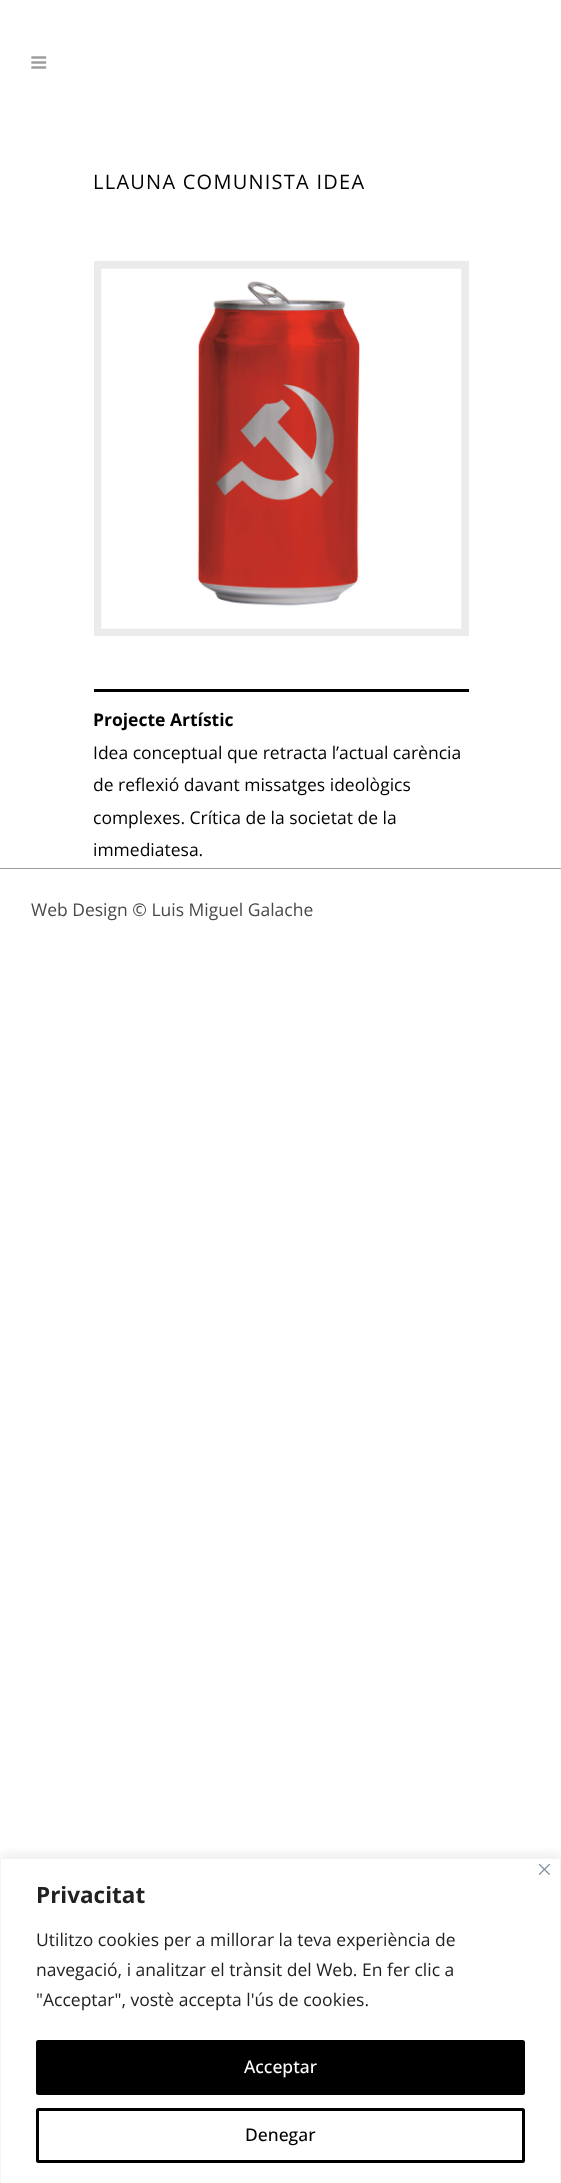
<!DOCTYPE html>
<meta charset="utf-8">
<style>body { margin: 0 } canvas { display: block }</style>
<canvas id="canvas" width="561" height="2183"></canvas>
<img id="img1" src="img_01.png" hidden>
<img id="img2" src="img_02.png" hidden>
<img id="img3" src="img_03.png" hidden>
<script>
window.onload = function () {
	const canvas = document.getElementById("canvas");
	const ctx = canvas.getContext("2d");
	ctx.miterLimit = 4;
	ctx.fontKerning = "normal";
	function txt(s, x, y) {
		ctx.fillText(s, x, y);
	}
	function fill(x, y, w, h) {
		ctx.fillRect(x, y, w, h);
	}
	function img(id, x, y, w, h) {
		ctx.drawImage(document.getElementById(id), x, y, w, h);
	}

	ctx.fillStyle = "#FFFFFF";
	fill(0, 0, 561, 2183);
	img("img1", 31, 56, 16, 13);
	ctx.fillStyle = "#EBEBEB";
	fill(94, 261, 375, 375);
	img("img2", 101, 268, 361, 361);
	ctx.fillStyle = "#000000";
	fill(94, 689, 375, 3);
	ctx.fillStyle = "#9E9E9E";
	fill(0, 868, 561, 1);
	ctx.save();
	ctx.beginPath();
	ctx.rect(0, 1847, 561, 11);
	ctx.clip();
	ctx.fillStyle = "rgba(172, 171, 171, 0.3)";
	ctx.filter = "blur(6px)";
	ctx.beginPath();
	ctx.rect(0, 1856, 561, 327);
	ctx.fill();
	ctx.filter = "none";
	ctx.restore();
	ctx.strokeStyle = "#F4F4F4";
	ctx.strokeRect(0.5, 1858.5, 560, 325);
	img("img3", 539, 1864, 11, 11);
	ctx.fillStyle = "#000000";
	ctx.beginPath();
	ctx.roundRect(37.5, 2041.5, 486, 52, 1);
	ctx.fill();
	ctx.strokeStyle = "#000000";
	ctx.lineWidth = 3;
	ctx.stroke();
	ctx.beginPath();
	ctx.roundRect(37.5, 2109.5, 486, 52, 1);
	ctx.stroke();
	ctx.letterSpacing = "1.25px";
	ctx.font = "20px Open Sans";
	txt("LLAUNA COMUNISTA IDEA", 93, 189);
	ctx.letterSpacing = "0px";
	ctx.font = "bold 17.5px Open Sans";
	txt("Projecte Artístic", 93, 726);
	ctx.font = "17.5px Open Sans";
	txt("Idea conceptual que retracta l’actual carència", 93, 759);
	txt("de reflexió davant missatges ideològics", 93, 791);
	txt("complexes. Crítica de la societat de la", 93, 824);
	txt("immediatesa.", 93, 856);
	ctx.fillStyle = "#494949";
	txt("Web Design © Luis Miguel Galache", 31, 916);
	ctx.font = "bold 22.5px Open Sans";
	ctx.fillStyle = "#212121";
	txt("Privacitat", 36, 1903);
	ctx.font = "17.5px Open Sans";
	txt("Utilitzo cookies per a millorar la teva experiència de", 36, 1946);
	txt("navegació, i analitzar el trànsit del Web. En fer clic a", 36, 1976);
	txt("\"Acceptar\", vostè accepta l'ús de cookies.", 36, 2006);
	ctx.font = "500 17.5px Open Sans";
	ctx.fillStyle = "#FFFFFF";
	txt("Acceptar", 244, 2073);
	ctx.fillStyle = "#000000";
	txt("Denegar", 245, 2141);
};
</script>
